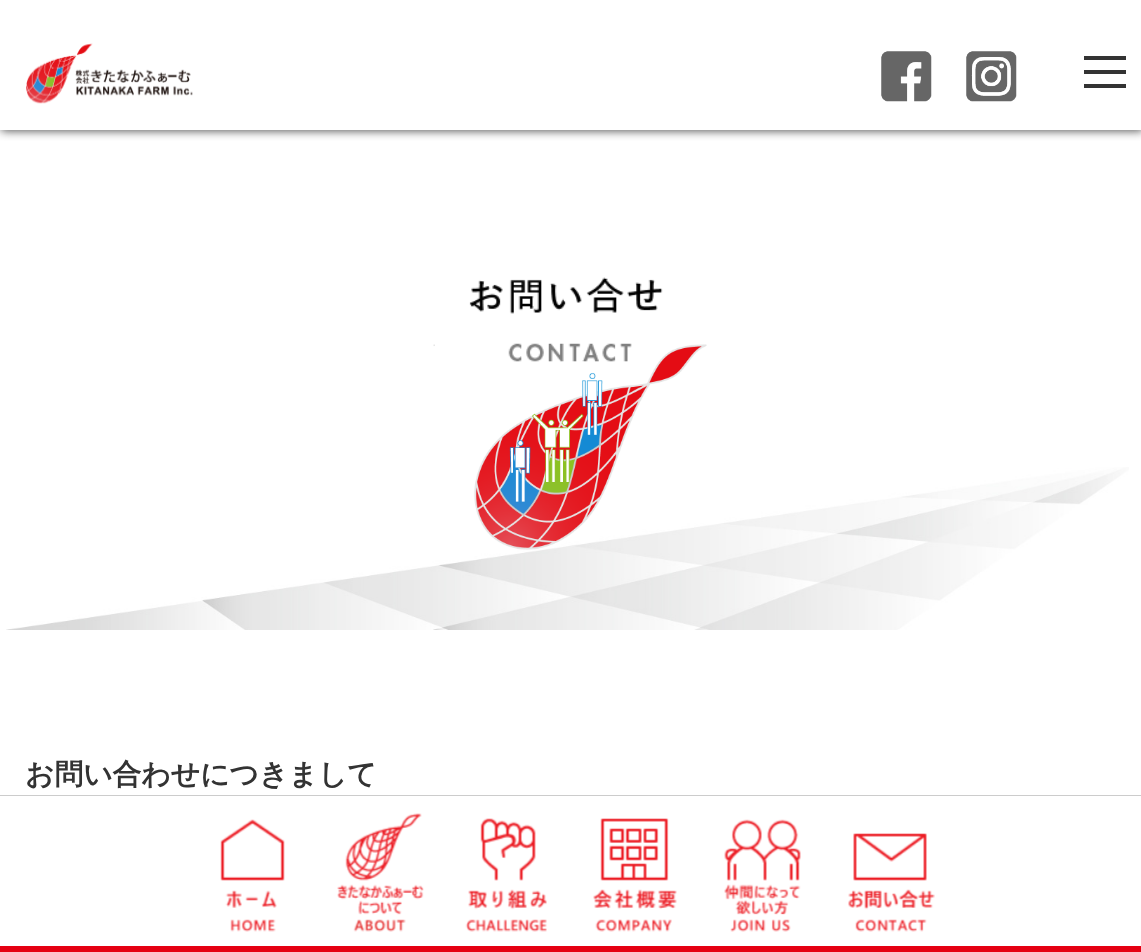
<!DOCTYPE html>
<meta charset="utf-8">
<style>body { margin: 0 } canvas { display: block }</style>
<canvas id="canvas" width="1141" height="952"></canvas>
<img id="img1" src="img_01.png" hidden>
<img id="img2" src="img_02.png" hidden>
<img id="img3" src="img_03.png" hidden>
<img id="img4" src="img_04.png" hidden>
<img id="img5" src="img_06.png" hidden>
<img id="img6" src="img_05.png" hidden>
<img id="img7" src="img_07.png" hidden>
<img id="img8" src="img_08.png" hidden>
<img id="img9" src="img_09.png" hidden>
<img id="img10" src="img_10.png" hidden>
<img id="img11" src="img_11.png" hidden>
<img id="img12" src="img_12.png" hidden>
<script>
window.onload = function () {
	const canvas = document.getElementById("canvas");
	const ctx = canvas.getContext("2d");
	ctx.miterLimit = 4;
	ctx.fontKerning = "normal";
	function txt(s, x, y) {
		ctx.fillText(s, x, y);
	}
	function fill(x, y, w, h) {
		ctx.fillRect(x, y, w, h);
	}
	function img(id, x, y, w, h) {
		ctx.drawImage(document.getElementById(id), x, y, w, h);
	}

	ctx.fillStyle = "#FFFFFF";
	fill(0, 0, 1141, 952);
	ctx.save();
	ctx.beginPath();
	ctx.rect(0, 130, 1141, 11);
	ctx.clip();
	ctx.fillStyle = "#555555";
	ctx.filter = "blur(5px)";
	ctx.beginPath();
	ctx.rect(1, -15, 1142, 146);
	ctx.fill();
	ctx.filter = "none";
	ctx.restore();
	img("img1", 26, 43, 167, 61);
	img("img2", 881, 51, 51, 51);
	img("img3", 966, 51, 51, 51);
	ctx.fillStyle = "#333333";
	fill(1084, 56, 42, 4);
	fill(1084, 70, 42, 4);
	fill(1084, 84, 42, 4);
	img("img4", 6, 467, 1123, 163);
	img("img5", 433, 344, 274, 206);
	img("img6", 469, 277, 194, 85);
	ctx.fillStyle = "#CCCCCC";
	fill(0, 795, 1141, 1);
	ctx.fillStyle = "#E50012";
	fill(0, 946, 1141, 6);
	img("img7", 220, 819, 65, 113);
	img("img8", 337, 813, 87, 119);
	img("img9", 465, 818, 82, 114);
	img("img10", 593, 818, 84, 114);
	img("img11", 724, 819, 77, 113);
	img("img12", 848, 833, 87, 99);
	ctx.font = "bold 28.75px WenQuanYi Zen Hei";
	ctx.fillStyle = "#333333";
	txt("お問い合わせにつきまして", 25, 784);
};
</script>
